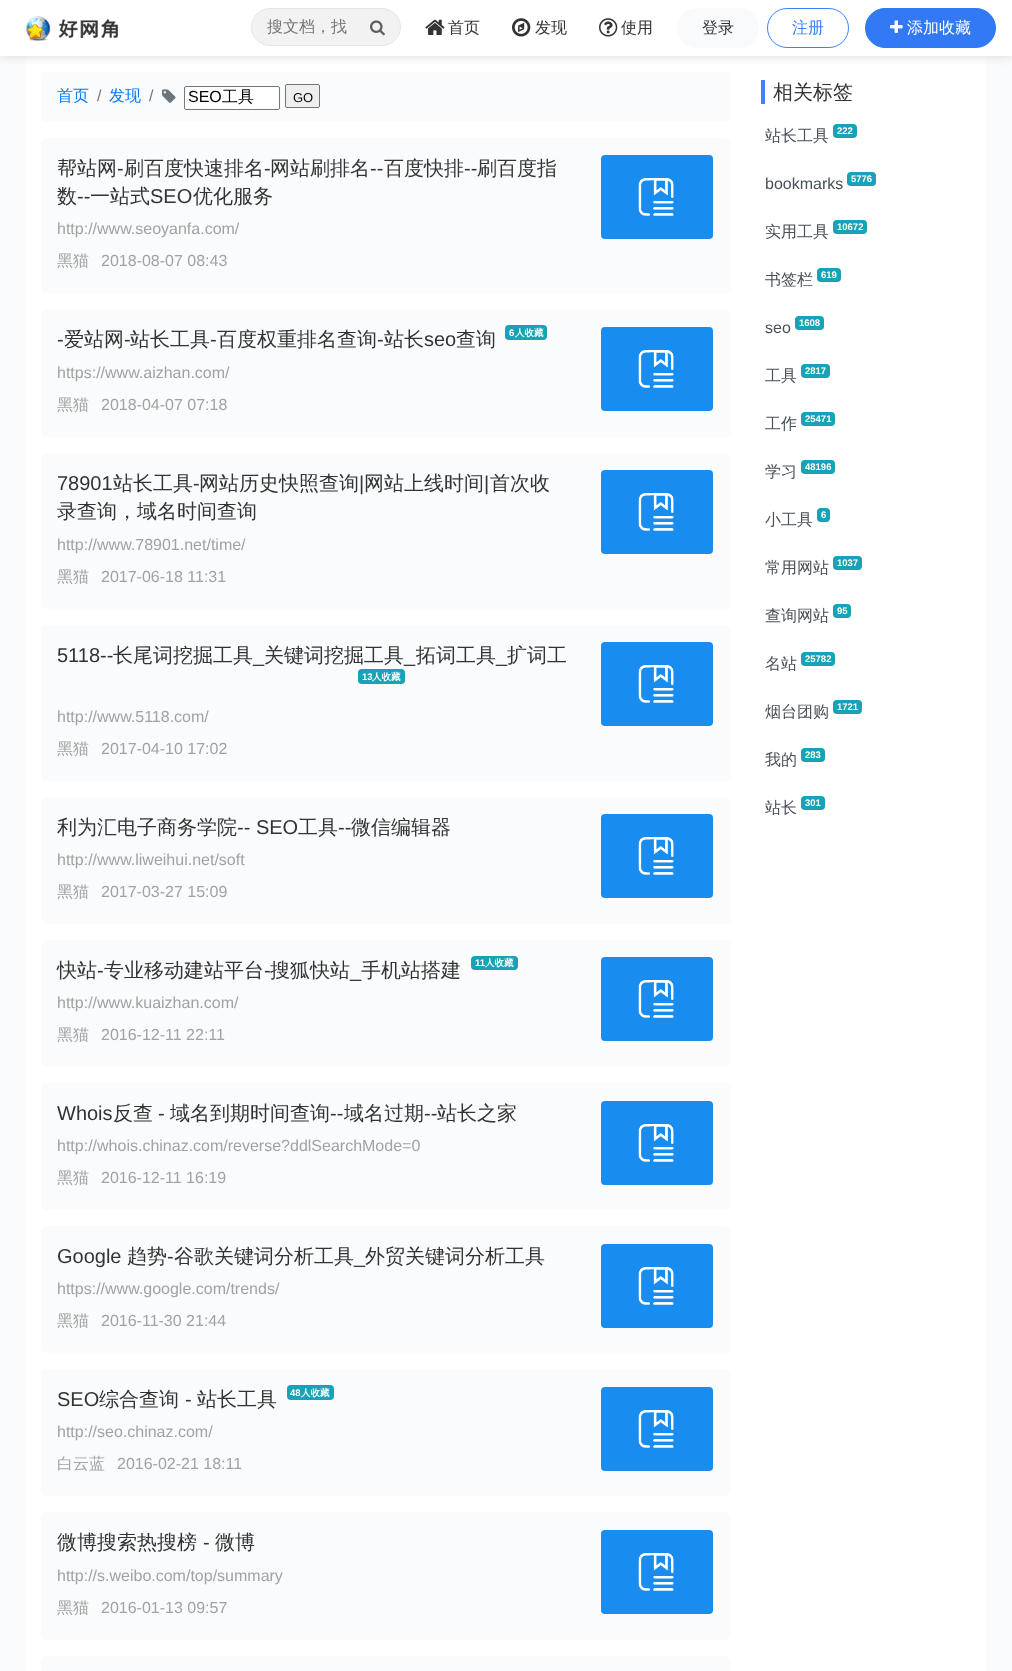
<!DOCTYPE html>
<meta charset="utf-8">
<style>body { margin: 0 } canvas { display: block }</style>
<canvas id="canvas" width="1012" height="1671"></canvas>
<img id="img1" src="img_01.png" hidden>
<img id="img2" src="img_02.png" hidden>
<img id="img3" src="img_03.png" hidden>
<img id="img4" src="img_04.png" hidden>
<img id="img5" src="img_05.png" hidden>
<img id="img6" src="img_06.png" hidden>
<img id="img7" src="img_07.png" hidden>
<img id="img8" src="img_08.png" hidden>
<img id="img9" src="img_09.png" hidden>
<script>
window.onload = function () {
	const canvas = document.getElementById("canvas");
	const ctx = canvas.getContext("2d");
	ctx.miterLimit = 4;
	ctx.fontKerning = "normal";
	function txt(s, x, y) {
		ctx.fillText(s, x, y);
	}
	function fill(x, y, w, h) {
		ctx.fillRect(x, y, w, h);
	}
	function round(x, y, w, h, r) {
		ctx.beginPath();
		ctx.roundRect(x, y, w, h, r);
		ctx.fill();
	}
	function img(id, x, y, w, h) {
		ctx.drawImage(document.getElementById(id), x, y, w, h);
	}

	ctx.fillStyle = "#FAFBFD";
	fill(0, 0, 1012, 1671);
	ctx.fillStyle = "#FFFFFF";
	fill(26, 56, 960, 1615);
	ctx.fillStyle = "#FAFBFD";
	round(41, 72, 690, 50, 4);
	ctx.fillStyle = "#DDDDDD";
	ctx.filter = "blur(5px)";
	ctx.beginPath();
	ctx.rect(0, 1, 1012, 56);
	ctx.fill();
	ctx.filter = "none";
	ctx.fillStyle = "#FFFFFF";
	fill(0, 0, 1012, 56);
	img("img1", 26, 16, 92, 25);
	ctx.fillStyle = "#F2F2F2";
	round(252, 9, 148, 36, 18);
	ctx.beginPath();
	ctx.roundRect(251.5, 8.5, 149, 37, 18.5);
	ctx.strokeStyle = "rgba(0, 0, 0, 0.1)";
	ctx.stroke();
	img("img2", 370, 20, 15, 16);
	img("img3", 425, 19, 20, 16);
	img("img4", 512, 18, 19, 19);
	img("img5", 599, 18, 19, 19);
	ctx.fillStyle = "#F9FAFC";
	round(677, 8, 82, 40, 20);
	ctx.beginPath();
	ctx.roundRect(767.5, 8.5, 81, 39, 19.5);
	ctx.strokeStyle = "#3B82FF";
	ctx.stroke();
	ctx.fillStyle = "#3279F6";
	ctx.beginPath();
	ctx.roundRect(865.5, 8.5, 130, 39, 19.5);
	ctx.fill();
	ctx.strokeStyle = "#3279F6";
	ctx.stroke();
	img("img6", 890, 20, 13, 13);
	img("img7", 162, 89, 14, 14);
	ctx.fillStyle = "#FFFFFF";
	ctx.beginPath();
	ctx.roundRect(184.5, 86.5, 95, 23, 1.5);
	ctx.fill();
	ctx.strokeStyle = "#767676";
	ctx.stroke();
	ctx.fillStyle = "#EFEFEF";
	ctx.beginPath();
	ctx.roundRect(285.5, 84.5, 34, 23, 1.5);
	ctx.fill();
	ctx.stroke();
	ctx.fillStyle = "#FAFBFD";
	round(41, 138, 690, 155, 6);
	img("img8", 601, 155, 112, 84);
	round(41, 309, 690, 128, 6);
	ctx.fillStyle = "#17A2B8";
	round(505, 325, 42, 15, 4);
	img("img8", 601, 327, 112, 84);
	ctx.fillStyle = "#FAFBFD";
	round(41, 453, 690, 156, 6);
	img("img8", 601, 470, 112, 84);
	round(41, 625, 690, 156, 6);
	ctx.fillStyle = "#17A2B8";
	round(358, 669, 47, 15, 4);
	img("img8", 601, 642, 112, 84);
	ctx.fillStyle = "#FAFBFD";
	round(41, 797, 690, 127, 6);
	img("img8", 601, 814, 112, 84);
	round(41, 940, 690, 127, 6);
	ctx.fillStyle = "#17A2B8";
	round(471, 956, 47, 14, 4);
	img("img8", 601, 957, 112, 84);
	ctx.fillStyle = "#FAFBFD";
	round(41, 1083, 690, 127, 6);
	img("img8", 601, 1101, 112, 84);
	round(41, 1226, 690, 127, 6);
	img("img8", 601, 1244, 112, 84);
	round(41, 1369, 690, 127, 6);
	ctx.fillStyle = "#17A2B8";
	round(287, 1385, 47, 15, 4);
	img("img9", 601, 1387, 112, 84);
	ctx.fillStyle = "#FAFBFD";
	round(41, 1512, 690, 128, 6);
	img("img8", 601, 1530, 112, 84);
	round(41, 1656, 690, 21, 6);
	ctx.fillStyle = "#3B82FF";
	fill(761, 80, 4, 24);
	ctx.fillStyle = "#17A2B8";
	round(833, 124, 24, 14, 4);
	round(847, 172, 29, 14, 4);
	round(833, 220, 34, 14, 4);
	round(817, 268, 24, 14, 4);
	round(795, 316, 29, 14, 4);
	round(801, 364, 29, 14, 4);
	round(801, 412, 34, 14, 4);
	round(801, 460, 34, 14, 4);
	round(817, 508, 13, 14, 4);
	round(833, 556, 29, 14, 4);
	round(833, 604, 18, 14, 4);
	round(801, 652, 34, 14, 4);
	round(833, 700, 29, 14, 4);
	round(801, 748, 24, 14, 4);
	round(801, 796, 24, 14, 4);
	ctx.font = "500 16px WenQuanYi Zen Hei";
	ctx.fillStyle = "#787676";
	txt("搜文档，找", 267, 32);
	ctx.fillStyle = "#333333";
	txt("首页", 448, 33);
	txt("发现", 535, 33);
	txt("使用", 621, 33);
	txt("登录", 702, 33);
	ctx.fillStyle = "#3B82FF";
	txt("注册", 792, 33);
	ctx.fillStyle = "#FFFFFF";
	txt("添加收藏", 907, 33);
	ctx.fillStyle = "#007BFF";
	txt("首页", 57, 101);
	ctx.font = "16px Liberation Sans";
	ctx.fillStyle = "#6C757D";
	txt("/", 97, 101);
	ctx.font = "500 16px WenQuanYi Zen Hei";
	ctx.fillStyle = "#007BFF";
	txt("发现", 109, 101);
	ctx.font = "16px Liberation Sans";
	ctx.fillStyle = "#6C757D";
	txt("/", 149, 101);
	ctx.fillStyle = "#000000";
	txt("SEO", 188, 102);
	ctx.font = "500 16px WenQuanYi Zen Hei";
	txt("工具", 222, 102);
	ctx.font = "13px Liberation Sans";
	txt("GO", 293, 102);
	ctx.font = "500 20px WenQuanYi Zen Hei";
	ctx.fillStyle = "#333333";
	txt("帮站网", 57, 175);
	ctx.font = "20px Liberation Sans";
	txt("-", 117, 175);
	ctx.font = "500 20px WenQuanYi Zen Hei";
	txt("刷百度快速排名", 124, 175);
	ctx.font = "20px Liberation Sans";
	txt("-", 264, 175);
	ctx.font = "500 20px WenQuanYi Zen Hei";
	txt("网站刷排名", 270, 175);
	ctx.font = "20px Liberation Sans";
	txt("--", 370, 175);
	ctx.font = "500 20px WenQuanYi Zen Hei";
	txt("百度快排", 384, 175);
	ctx.font = "20px Liberation Sans";
	txt("--", 464, 175);
	ctx.font = "500 20px WenQuanYi Zen Hei";
	txt("刷百度指", 477, 175);
	txt("数", 57, 203);
	ctx.font = "20px Liberation Sans";
	txt("--", 77, 203);
	ctx.font = "500 20px WenQuanYi Zen Hei";
	txt("一站式", 90, 203);
	ctx.font = "20px Liberation Sans";
	txt("SEO", 150, 203);
	ctx.font = "500 20px WenQuanYi Zen Hei";
	txt("优化服务", 193, 203);
	ctx.font = "16px Liberation Sans";
	ctx.fillStyle = "#A2A2A2";
	txt("http://www.seoyanfa.com/", 57, 234);
	ctx.font = "500 16px WenQuanYi Zen Hei";
	txt("黑猫", 57, 266);
	ctx.font = "16px Liberation Sans";
	txt("2018-08-07 08:43", 101, 266);
	ctx.font = "20px Liberation Sans";
	ctx.fillStyle = "#333333";
	txt("-", 57, 346);
	ctx.font = "500 20px WenQuanYi Zen Hei";
	txt("爱站网", 64, 346);
	ctx.font = "20px Liberation Sans";
	txt("-", 124, 346);
	ctx.font = "500 20px WenQuanYi Zen Hei";
	txt("站长工具", 130, 346);
	ctx.font = "20px Liberation Sans";
	txt("-", 210, 346);
	ctx.font = "500 20px WenQuanYi Zen Hei";
	txt("百度权重排名查询", 217, 346);
	ctx.font = "20px Liberation Sans";
	txt("-", 377, 346);
	ctx.font = "500 20px WenQuanYi Zen Hei";
	txt("站长", 384, 346);
	ctx.font = "20px Liberation Sans";
	txt("seo", 424, 346);
	ctx.font = "500 20px WenQuanYi Zen Hei";
	txt("查询", 456, 346);
	ctx.font = "bold 9.5px Liberation Sans";
	ctx.fillStyle = "#FFFFFF";
	txt("6", 509, 336);
	ctx.font = "bold 9.5px WenQuanYi Zen Hei";
	txt("人收藏", 515, 336);
	ctx.font = "16px Liberation Sans";
	ctx.fillStyle = "#A2A2A2";
	txt("https://www.aizhan.com/", 57, 378);
	ctx.font = "500 16px WenQuanYi Zen Hei";
	txt("黑猫", 57, 410);
	ctx.font = "16px Liberation Sans";
	txt("2018-04-07 07:18", 101, 410);
	ctx.font = "20px Liberation Sans";
	ctx.fillStyle = "#333333";
	txt("78901", 57, 490);
	ctx.font = "500 20px WenQuanYi Zen Hei";
	txt("站长工具", 113, 490);
	ctx.font = "20px Liberation Sans";
	txt("-", 193, 490);
	ctx.font = "500 20px WenQuanYi Zen Hei";
	txt("网站历史快照查询", 199, 490);
	ctx.font = "20px Liberation Sans";
	txt("|", 359, 490);
	ctx.font = "500 20px WenQuanYi Zen Hei";
	txt("网站上线时间", 364, 490);
	ctx.font = "20px Liberation Sans";
	txt("|", 484, 490);
	ctx.font = "500 20px WenQuanYi Zen Hei";
	txt("首次收", 490, 490);
	txt("录查询，域名时间查询", 57, 518);
	ctx.font = "16px Liberation Sans";
	ctx.fillStyle = "#A2A2A2";
	txt("http://www.78901.net/time/", 57, 550);
	ctx.font = "500 16px WenQuanYi Zen Hei";
	txt("黑猫", 57, 582);
	ctx.font = "16px Liberation Sans";
	txt("2017-06-18 11:31", 101, 582);
	ctx.font = "20px Liberation Sans";
	ctx.fillStyle = "#333333";
	txt("5118--", 57, 662);
	ctx.font = "500 20px WenQuanYi Zen Hei";
	txt("长尾词挖掘工具", 113, 662);
	txt("关键词挖掘工具", 264, 662);
	ctx.font = "20px Liberation Sans";
	txt("_", 253, 662);
	txt("_", 404, 662);
	ctx.font = "500 20px WenQuanYi Zen Hei";
	txt("拓词工具", 416, 662);
	ctx.font = "20px Liberation Sans";
	txt("_", 496, 662);
	ctx.font = "500 20px WenQuanYi Zen Hei";
	txt("扩词工", 507, 662);
	ctx.font = "bold 9.5px Liberation Sans";
	ctx.fillStyle = "#FFFFFF";
	txt("13", 362, 680);
	ctx.font = "bold 9.5px WenQuanYi Zen Hei";
	txt("人收藏", 372, 680);
	ctx.font = "16px Liberation Sans";
	ctx.fillStyle = "#A2A2A2";
	txt("http://www.5118.com/", 57, 722);
	ctx.font = "500 16px WenQuanYi Zen Hei";
	txt("黑猫", 57, 754);
	ctx.font = "16px Liberation Sans";
	txt("2017-04-10 17:02", 101, 754);
	ctx.font = "500 20px WenQuanYi Zen Hei";
	ctx.fillStyle = "#333333";
	txt("利为汇电子商务学院", 57, 834);
	ctx.font = "20px Liberation Sans";
	txt("-- SEO", 237, 834);
	ctx.font = "500 20px WenQuanYi Zen Hei";
	txt("工具", 298, 834);
	ctx.font = "20px Liberation Sans";
	txt("--", 338, 834);
	ctx.font = "500 20px WenQuanYi Zen Hei";
	txt("微信编辑器", 351, 834);
	ctx.font = "16px Liberation Sans";
	ctx.fillStyle = "#A2A2A2";
	txt("http://www.liweihui.net/soft", 57, 865);
	ctx.font = "500 16px WenQuanYi Zen Hei";
	txt("黑猫", 57, 897);
	ctx.font = "16px Liberation Sans";
	txt("2017-03-27 15:09", 101, 897);
	ctx.font = "500 20px WenQuanYi Zen Hei";
	ctx.fillStyle = "#333333";
	txt("快站", 57, 977);
	ctx.font = "20px Liberation Sans";
	txt("-", 97, 977);
	ctx.font = "500 20px WenQuanYi Zen Hei";
	txt("专业移动建站平台", 104, 977);
	ctx.font = "20px Liberation Sans";
	txt("-", 264, 977);
	ctx.font = "500 20px WenQuanYi Zen Hei";
	txt("搜狐快站", 270, 977);
	ctx.font = "bold 9.5px Liberation Sans";
	ctx.fillStyle = "#FFFFFF";
	txt("11", 475, 966);
	ctx.font = "bold 9.5px WenQuanYi Zen Hei";
	txt("人收藏", 485, 966);
	ctx.font = "20px Liberation Sans";
	ctx.fillStyle = "#333333";
	txt("_", 350, 977);
	ctx.font = "500 20px WenQuanYi Zen Hei";
	txt("手机站搭建", 361, 977);
	ctx.font = "16px Liberation Sans";
	ctx.fillStyle = "#A2A2A2";
	txt("http://www.kuaizhan.com/", 57, 1008);
	ctx.font = "500 16px WenQuanYi Zen Hei";
	txt("黑猫", 57, 1040);
	ctx.font = "16px Liberation Sans";
	txt("2016-12-11 22:11", 101, 1040);
	ctx.font = "20px Liberation Sans";
	ctx.fillStyle = "#333333";
	txt("Whois", 57, 1120);
	ctx.font = "500 20px WenQuanYi Zen Hei";
	txt("反查", 113, 1120);
	ctx.font = "20px Liberation Sans";
	txt("-", 158, 1120);
	ctx.font = "500 20px WenQuanYi Zen Hei";
	txt("域名到期时间查询", 170, 1120);
	ctx.font = "20px Liberation Sans";
	txt("--", 330, 1120);
	ctx.font = "500 20px WenQuanYi Zen Hei";
	txt("域名过期", 344, 1120);
	ctx.font = "20px Liberation Sans";
	txt("--", 424, 1120);
	ctx.font = "500 20px WenQuanYi Zen Hei";
	txt("站长之家", 437, 1120);
	ctx.font = "16px Liberation Sans";
	ctx.fillStyle = "#A2A2A2";
	txt("http://whois.chinaz.com/reverse?ddlSearchMode=0", 57, 1151);
	ctx.font = "500 16px WenQuanYi Zen Hei";
	txt("黑猫", 57, 1183);
	ctx.font = "16px Liberation Sans";
	txt("2016-12-11 16:19", 101, 1183);
	ctx.font = "20px Liberation Sans";
	ctx.fillStyle = "#333333";
	txt("Google", 57, 1263);
	ctx.font = "500 20px WenQuanYi Zen Hei";
	txt("趋势", 127, 1263);
	ctx.font = "20px Liberation Sans";
	txt("-", 167, 1263);
	ctx.font = "500 20px WenQuanYi Zen Hei";
	txt("谷歌关键词分析工具", 174, 1263);
	ctx.font = "20px Liberation Sans";
	txt("_", 354, 1263);
	ctx.font = "500 20px WenQuanYi Zen Hei";
	txt("外贸关键词分析工具", 365, 1263);
	ctx.font = "16px Liberation Sans";
	ctx.fillStyle = "#A2A2A2";
	txt("https://www.google.com/trends/", 57, 1294);
	ctx.font = "500 16px WenQuanYi Zen Hei";
	txt("黑猫", 57, 1326);
	ctx.font = "16px Liberation Sans";
	txt("2016-11-30 21:44", 101, 1326);
	ctx.font = "20px Liberation Sans";
	ctx.fillStyle = "#333333";
	txt("SEO", 57, 1406);
	ctx.font = "500 20px WenQuanYi Zen Hei";
	txt("综合查询", 99, 1406);
	ctx.font = "20px Liberation Sans";
	txt("-", 185, 1406);
	ctx.font = "500 20px WenQuanYi Zen Hei";
	txt("站长工具", 197, 1406);
	ctx.font = "bold 9.5px Liberation Sans";
	ctx.fillStyle = "#FFFFFF";
	txt("48", 290, 1396);
	ctx.font = "bold 9.5px WenQuanYi Zen Hei";
	txt("人收藏", 301, 1396);
	ctx.font = "16px Liberation Sans";
	ctx.fillStyle = "#A2A2A2";
	txt("http://seo.chinaz.com/", 57, 1437);
	ctx.font = "500 16px WenQuanYi Zen Hei";
	txt("白云蓝", 57, 1469);
	ctx.font = "16px Liberation Sans";
	txt("2016-02-21 18:11", 117, 1469);
	ctx.font = "500 20px WenQuanYi Zen Hei";
	ctx.fillStyle = "#333333";
	txt("微博搜索热搜榜", 57, 1549);
	ctx.font = "20px Liberation Sans";
	txt("-", 203, 1549);
	ctx.font = "500 20px WenQuanYi Zen Hei";
	txt("微博", 215, 1549);
	ctx.font = "16px Liberation Sans";
	ctx.fillStyle = "#A2A2A2";
	txt("http://s.weibo.com/top/summary", 57, 1581);
	ctx.font = "500 16px WenQuanYi Zen Hei";
	txt("黑猫", 57, 1613);
	ctx.font = "16px Liberation Sans";
	txt("2016-01-13 09:57", 101, 1613);
	ctx.font = "500 20px WenQuanYi Zen Hei";
	ctx.fillStyle = "#333333";
	txt("相关标签", 773, 99);
	ctx.font = "500 16px WenQuanYi Zen Hei";
	ctx.fillStyle = "#495057";
	txt("站长工具", 765, 141);
	ctx.font = "bold 9.5px Liberation Sans";
	ctx.fillStyle = "#FFFFFF";
	txt("222", 837, 134);
	ctx.font = "16px Liberation Sans";
	ctx.fillStyle = "#495057";
	txt("bookmarks", 765, 189);
	ctx.font = "bold 9.5px Liberation Sans";
	ctx.fillStyle = "#FFFFFF";
	txt("5776", 851, 182);
	ctx.font = "500 16px WenQuanYi Zen Hei";
	ctx.fillStyle = "#495057";
	txt("实用工具", 765, 237);
	ctx.font = "bold 9.5px Liberation Sans";
	ctx.fillStyle = "#FFFFFF";
	txt("10672", 837, 230);
	ctx.font = "500 16px WenQuanYi Zen Hei";
	ctx.fillStyle = "#495057";
	txt("书签栏", 765, 285);
	ctx.font = "bold 9.5px Liberation Sans";
	ctx.fillStyle = "#FFFFFF";
	txt("619", 821, 278);
	txt("1608", 799, 326);
	ctx.font = "16px Liberation Sans";
	ctx.fillStyle = "#495057";
	txt("seo", 765, 333);
	ctx.font = "500 16px WenQuanYi Zen Hei";
	txt("工具", 765, 381);
	ctx.font = "bold 9.5px Liberation Sans";
	ctx.fillStyle = "#FFFFFF";
	txt("2817", 805, 374);
	ctx.font = "500 16px WenQuanYi Zen Hei";
	ctx.fillStyle = "#495057";
	txt("工作", 765, 429);
	ctx.font = "bold 9.5px Liberation Sans";
	ctx.fillStyle = "#FFFFFF";
	txt("25471", 805, 422);
	ctx.font = "500 16px WenQuanYi Zen Hei";
	ctx.fillStyle = "#495057";
	txt("学习", 765, 477);
	ctx.font = "bold 9.5px Liberation Sans";
	ctx.fillStyle = "#FFFFFF";
	txt("48196", 805, 470);
	ctx.font = "500 16px WenQuanYi Zen Hei";
	ctx.fillStyle = "#495057";
	txt("小工具", 765, 525);
	ctx.font = "bold 9.5px Liberation Sans";
	ctx.fillStyle = "#FFFFFF";
	txt("6", 821, 518);
	ctx.font = "500 16px WenQuanYi Zen Hei";
	ctx.fillStyle = "#495057";
	txt("常用网站", 765, 573);
	ctx.font = "bold 9.5px Liberation Sans";
	ctx.fillStyle = "#FFFFFF";
	txt("1037", 837, 566);
	ctx.font = "500 16px WenQuanYi Zen Hei";
	ctx.fillStyle = "#495057";
	txt("查询网站", 765, 621);
	ctx.font = "bold 9.5px Liberation Sans";
	ctx.fillStyle = "#FFFFFF";
	txt("95", 837, 614);
	ctx.font = "500 16px WenQuanYi Zen Hei";
	ctx.fillStyle = "#495057";
	txt("名站", 765, 669);
	ctx.font = "bold 9.5px Liberation Sans";
	ctx.fillStyle = "#FFFFFF";
	txt("25782", 805, 662);
	ctx.font = "500 16px WenQuanYi Zen Hei";
	ctx.fillStyle = "#495057";
	txt("烟台团购", 765, 717);
	ctx.font = "bold 9.5px Liberation Sans";
	ctx.fillStyle = "#FFFFFF";
	txt("1721", 837, 710);
	ctx.font = "500 16px WenQuanYi Zen Hei";
	ctx.fillStyle = "#495057";
	txt("我的", 765, 765);
	ctx.font = "bold 9.5px Liberation Sans";
	ctx.fillStyle = "#FFFFFF";
	txt("283", 805, 758);
	ctx.font = "500 16px WenQuanYi Zen Hei";
	ctx.fillStyle = "#495057";
	txt("站长", 765, 813);
	ctx.font = "bold 9.5px Liberation Sans";
	ctx.fillStyle = "#FFFFFF";
	txt("301", 805, 806);
};
</script>
